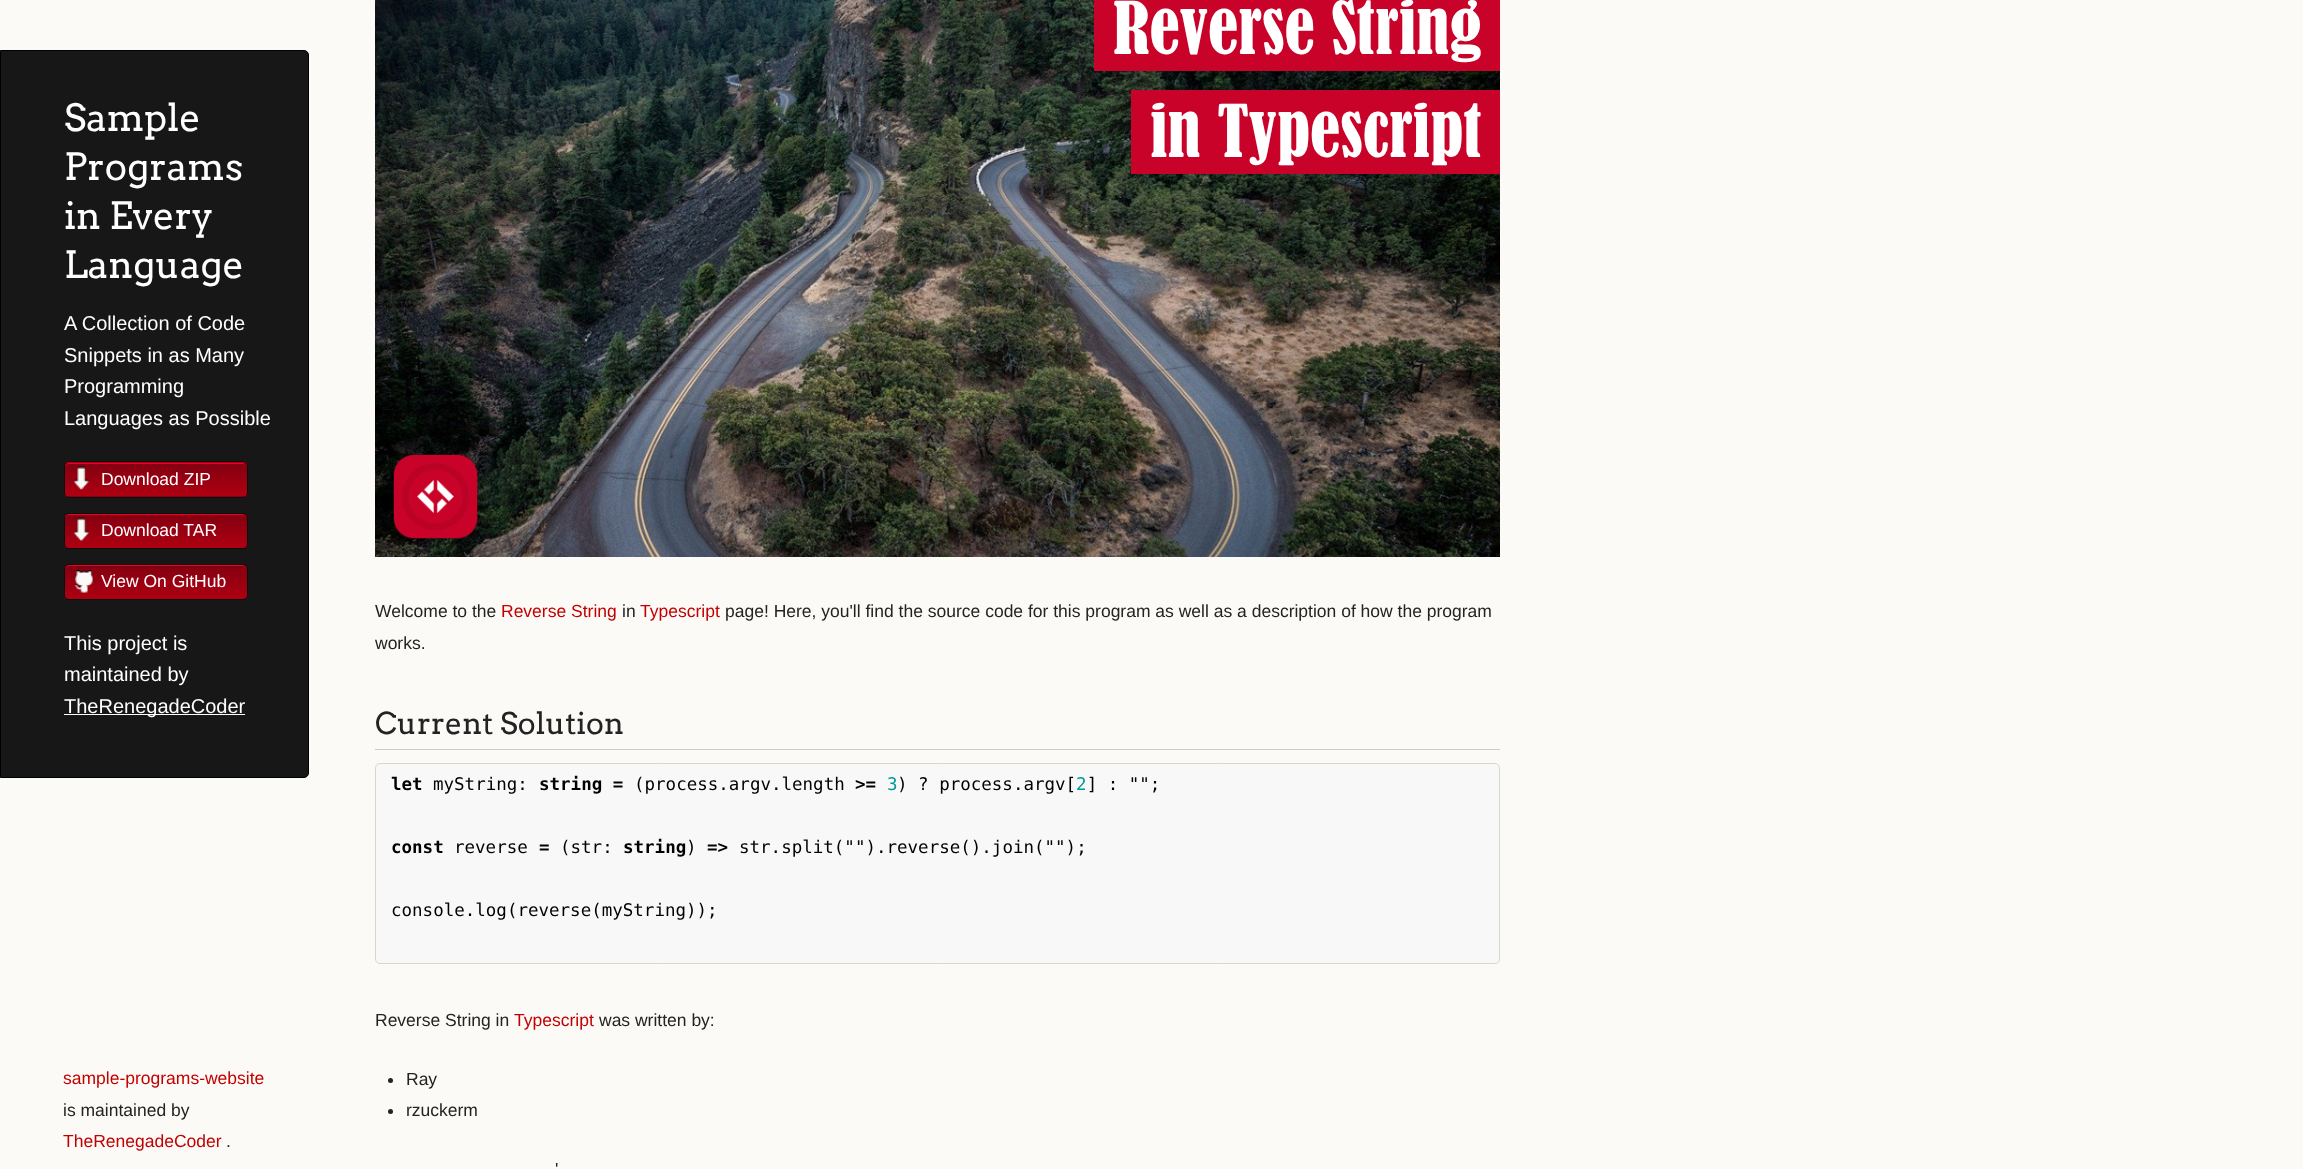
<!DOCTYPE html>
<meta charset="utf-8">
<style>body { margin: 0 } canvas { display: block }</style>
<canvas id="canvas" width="2303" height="1169"></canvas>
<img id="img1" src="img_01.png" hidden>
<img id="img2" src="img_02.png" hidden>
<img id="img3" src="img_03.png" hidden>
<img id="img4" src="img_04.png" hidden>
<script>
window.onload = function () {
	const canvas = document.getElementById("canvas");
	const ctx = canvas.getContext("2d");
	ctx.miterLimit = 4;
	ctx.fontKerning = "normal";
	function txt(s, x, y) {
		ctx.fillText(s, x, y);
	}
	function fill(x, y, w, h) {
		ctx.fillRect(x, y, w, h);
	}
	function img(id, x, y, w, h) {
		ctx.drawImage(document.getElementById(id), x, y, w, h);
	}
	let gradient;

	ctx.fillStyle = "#FBFAF7";
	fill(0, 0, 2303, 1169);
	ctx.fillStyle = "#171717";
	ctx.beginPath();
	ctx.roundRect(0.5, 50.5, 308, 727, [0, 4.5, 4.5, 0]);
	ctx.fill();
	ctx.strokeStyle = "#000000";
	ctx.stroke();
	ctx.save();
	ctx.beginPath();
	ctx.roundRect(64, 461, 184, 37, 5);
	ctx.clip();
	gradient = ctx.createLinearGradient(156, 463, 156, 429);
	gradient.addColorStop(0, "#AF0011");
	gradient.addColorStop(1, "#820011");
	ctx.fillStyle = gradient;
	fill(64, 461, 184, 2);
	gradient = ctx.createLinearGradient(156, 496, 156, 463);
	gradient.addColorStop(0, "#AF0011");
	gradient.addColorStop(1, "#820011");
	ctx.fillStyle = gradient;
	fill(64, 463, 184, 33);
	gradient = ctx.createLinearGradient(156, 530, 156, 496);
	gradient.addColorStop(0, "#AF0011");
	gradient.addColorStop(1, "#820011");
	ctx.fillStyle = gradient;
	fill(64, 496, 184, 2);
	ctx.restore();
	ctx.fillStyle = "#E90226";
	ctx.beginPath();
	ctx.moveTo(69, 464);
	ctx.lineTo(242, 464);
	ctx.bezierCurveTo(245, 464, 246, 465, 246, 468);
	ctx.lineTo(246, 467);
	ctx.bezierCurveTo(246, 465, 244, 463, 242, 463);
	ctx.lineTo(69, 463);
	ctx.bezierCurveTo(67, 463, 65, 465, 65, 467);
	ctx.lineTo(65, 468);
	ctx.bezierCurveTo(65, 465, 67, 464, 69, 464);
	ctx.closePath();
	ctx.fill();
	ctx.beginPath();
	ctx.roundRect(64.5, 461.5, 183, 36, 4.5);
	ctx.strokeStyle = "#0D0D0D";
	ctx.stroke();
	img("img1", 73, 466, 16, 24);
	ctx.save();
	ctx.beginPath();
	ctx.roundRect(64, 513, 184, 36, 5);
	ctx.clip();
	gradient = ctx.createLinearGradient(156, 548, 156, 514);
	gradient.addColorStop(0, "#AF0011");
	gradient.addColorStop(1, "#820011");
	ctx.fillStyle = gradient;
	fill(64, 514, 184, 34);
	ctx.restore();
	ctx.beginPath();
	ctx.moveTo(69, 515);
	ctx.lineTo(242, 515);
	ctx.bezierCurveTo(245, 515, 246, 517, 246, 519);
	ctx.lineTo(246, 518);
	ctx.bezierCurveTo(246, 516, 244, 514, 242, 514);
	ctx.lineTo(69, 514);
	ctx.bezierCurveTo(67, 514, 65, 516, 65, 518);
	ctx.lineTo(65, 519);
	ctx.bezierCurveTo(65, 517, 67, 515, 69, 515);
	ctx.closePath();
	ctx.fill();
	ctx.beginPath();
	ctx.roundRect(64.5, 513.5, 183, 35, 4.5);
	ctx.stroke();
	img("img2", 73, 517, 16, 25);
	ctx.save();
	ctx.beginPath();
	ctx.roundRect(64, 564, 184, 36, 5);
	ctx.clip();
	gradient = ctx.createLinearGradient(156, 599, 156, 565);
	gradient.addColorStop(0, "#AF0011");
	gradient.addColorStop(1, "#820011");
	ctx.fillStyle = gradient;
	fill(64, 565, 184, 34);
	ctx.restore();
	ctx.beginPath();
	ctx.moveTo(69, 566);
	ctx.lineTo(242, 566);
	ctx.bezierCurveTo(245, 566, 246, 568, 246, 570);
	ctx.lineTo(246, 569);
	ctx.bezierCurveTo(246, 567, 244, 565, 242, 565);
	ctx.lineTo(69, 565);
	ctx.bezierCurveTo(67, 565, 65, 567, 65, 569);
	ctx.lineTo(65, 570);
	ctx.bezierCurveTo(65, 568, 67, 566, 69, 566);
	ctx.closePath();
	ctx.fill();
	ctx.beginPath();
	ctx.roundRect(64.5, 564.5, 183, 35, 4.5);
	ctx.stroke();
	img("img3", 75, 570, 18, 23);
	ctx.fillStyle = "#FFFFFF";
	fill(64, 714, 181, 1);
	img("img4", 375, 0, 1125, 557);
	ctx.fillStyle = "#C90229";
	fill(1094, 0, 406, 71);
	fill(1131, 90, 369, 84);
	ctx.fillStyle = "#CCCCCC";
	fill(375, 749, 1125, 1);
	ctx.fillStyle = "#F8F8F8";
	fill(375, 763, 1125, 201);
	ctx.beginPath();
	ctx.roundRect(375.5, 763.5, 1124, 200, 4.5);
	ctx.strokeStyle = "#D7D8C8";
	ctx.stroke();
	ctx.fillStyle = "#232323";
	ctx.beginPath();
	ctx.arc(390.5, 1080.5, 2.5, 0, Math.PI * 2);
	ctx.fill();
	ctx.beginPath();
	ctx.arc(390.5, 1111.5, 2.5, 0, Math.PI * 2);
	ctx.fill();
	ctx.font = "37.5px Arvo";
	ctx.fillStyle = "#FFFFFF";
	txt("Sample", 64, 131);
	txt("Programs", 64, 180);
	txt("in Every", 64, 229);
	txt("Language", 64, 278);
	ctx.font = "20px Liberation Sans";
	txt("A Collection of Code", 64, 330);
	txt("Snippets in as Many", 64, 362);
	txt("Programming", 64, 393);
	txt("Languages as Possible", 64, 425);
	ctx.font = "17.5px Liberation Sans";
	txt("Download ZIP", 101, 485);
	txt("Download TAR", 101, 536);
	txt("View On GitHub", 101, 587);
	ctx.font = "20px Liberation Sans";
	txt("This project is", 64, 650);
	txt("maintained by", 64, 681);
	txt("TheRenegadeCoder", 64, 713);
	ctx.font = "67.5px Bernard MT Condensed";
	txt("Reverse String", 1113, 54);
	txt("in Typescript", 1150, 157);
	ctx.font = "17.5px Liberation Sans";
	ctx.fillStyle = "#232323";
	txt("Welcome to the", 375, 617);
	ctx.fillStyle = "#C30000";
	txt("Reverse String", 501, 617);
	ctx.fillStyle = "#232323";
	txt("in", 622, 617);
	ctx.fillStyle = "#C30000";
	txt("Typescript", 640, 617);
	ctx.fillStyle = "#232323";
	txt("page! Here, you'll find the source code for this program as well as a description of how the program", 725, 617);
	txt("works.", 375, 649);
	ctx.font = "30px Arvo";
	txt("Current Solution", 375, 734);
	ctx.font = "bold 17.5px DejaVu Sans Mono";
	ctx.fillStyle = "#000000";
	txt("let", 391, 790);
	ctx.font = "17.5px DejaVu Sans Mono";
	txt("myString:", 433, 790);
	ctx.font = "bold 17.5px DejaVu Sans Mono";
	txt("string =", 539, 790);
	ctx.font = "17.5px DejaVu Sans Mono";
	txt("(process.argv.length", 634, 790);
	ctx.fillStyle = "#009999";
	txt("3", 887, 790);
	ctx.fillStyle = "#000000";
	txt(") ? process.argv[ ] : \"\";", 897, 790);
	ctx.font = "bold 17.5px DejaVu Sans Mono";
	txt(">=", 855, 790);
	ctx.font = "17.5px DejaVu Sans Mono";
	ctx.fillStyle = "#009999";
	txt("2", 1076, 790);
	ctx.font = "bold 17.5px DejaVu Sans Mono";
	ctx.fillStyle = "#000000";
	txt("const", 391, 853);
	ctx.font = "17.5px DejaVu Sans Mono";
	txt("reverse", 454, 853);
	ctx.font = "bold 17.5px DejaVu Sans Mono";
	txt("=", 539, 853);
	ctx.font = "17.5px DejaVu Sans Mono";
	txt("(str:", 560, 853);
	ctx.font = "bold 17.5px DejaVu Sans Mono";
	txt("string", 623, 853);
	ctx.font = "17.5px DejaVu Sans Mono";
	txt(")", 686, 853);
	ctx.font = "bold 17.5px DejaVu Sans Mono";
	txt("=>", 707, 853);
	ctx.font = "17.5px DejaVu Sans Mono";
	txt("str.split(\"\").reverse().join(\"\");", 739, 853);
	txt("console.log(reverse(myString));", 391, 916);
	ctx.font = "17.5px Liberation Sans";
	ctx.fillStyle = "#232323";
	txt("Reverse String in", 375, 1026);
	ctx.fillStyle = "#C30000";
	txt("Typescript", 514, 1026);
	ctx.fillStyle = "#232323";
	txt("was written by:", 599, 1026);
	txt("Ray", 406, 1085);
	txt("rzuckerm", 406, 1116);
	txt("'", 555, 1175);
	ctx.fillStyle = "#C30000";
	txt("sample-programs-website", 63, 1084);
	ctx.fillStyle = "#232323";
	txt("is maintained by", 63, 1116);
	ctx.fillStyle = "#C30000";
	txt("TheRenegadeCoder", 63, 1147);
	ctx.fillStyle = "#232323";
	txt(".", 226, 1147);
};
</script>
